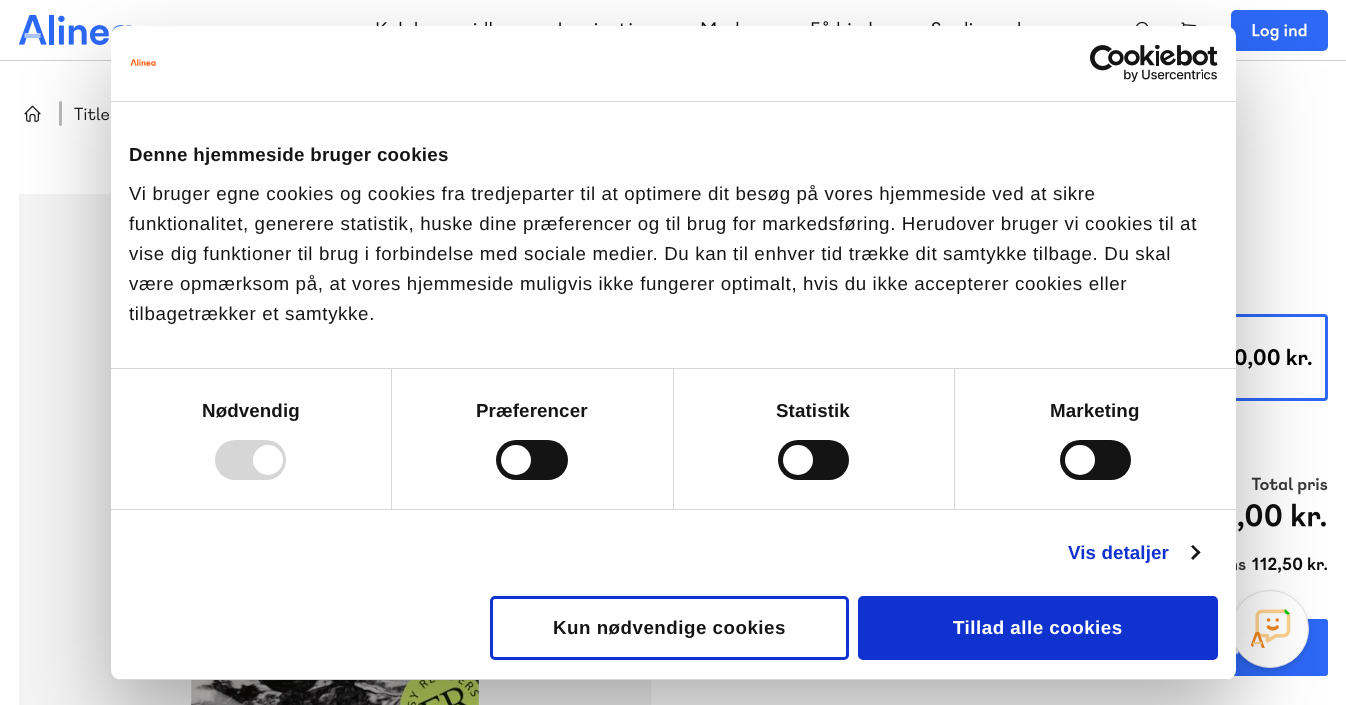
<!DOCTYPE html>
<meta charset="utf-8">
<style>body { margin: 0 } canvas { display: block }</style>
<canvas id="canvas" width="1346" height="705"></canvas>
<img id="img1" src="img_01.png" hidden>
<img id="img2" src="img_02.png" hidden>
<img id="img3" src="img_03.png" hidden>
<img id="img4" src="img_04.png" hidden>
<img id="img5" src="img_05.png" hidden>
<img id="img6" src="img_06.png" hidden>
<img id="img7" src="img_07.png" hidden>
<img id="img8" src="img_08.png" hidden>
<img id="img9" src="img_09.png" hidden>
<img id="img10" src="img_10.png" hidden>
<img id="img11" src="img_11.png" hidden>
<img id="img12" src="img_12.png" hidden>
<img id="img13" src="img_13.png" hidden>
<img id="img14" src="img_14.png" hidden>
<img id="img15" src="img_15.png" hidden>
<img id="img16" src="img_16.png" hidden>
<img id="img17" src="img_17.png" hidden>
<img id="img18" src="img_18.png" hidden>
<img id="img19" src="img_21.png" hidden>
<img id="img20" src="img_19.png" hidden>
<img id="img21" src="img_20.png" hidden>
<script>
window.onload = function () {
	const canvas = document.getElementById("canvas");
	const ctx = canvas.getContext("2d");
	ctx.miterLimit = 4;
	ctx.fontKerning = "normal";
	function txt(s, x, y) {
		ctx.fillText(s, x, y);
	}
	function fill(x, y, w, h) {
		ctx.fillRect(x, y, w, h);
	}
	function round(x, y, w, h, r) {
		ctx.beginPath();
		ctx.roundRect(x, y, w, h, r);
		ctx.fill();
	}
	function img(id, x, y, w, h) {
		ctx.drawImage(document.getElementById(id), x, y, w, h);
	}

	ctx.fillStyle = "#FFFFFF";
	fill(0, 0, 1346, 705);
	ctx.fillStyle = "#D1D1D1";
	fill(0, 60, 1346, 1);
	img("img1", 19, 15, 112, 30);
	img("img2", 376, 21, 116, 5);
	img("img3", 559, 22, 73, 4);
	img("img4", 701, 21, 38, 5);
	img("img5", 811, 21, 61, 5);
	img("img6", 932, 21, 88, 5);
	img("img7", 1136, 21, 12, 5);
	img("img8", 1181, 22, 16, 4);
	ctx.fillStyle = "#2D68F6";
	round(1231, 10, 97, 41, 5);
	img("img9", 1252, 23, 55, 18);
	img("img10", 24, 105, 17, 17);
	ctx.fillStyle = "#BABABA";
	round(59, 101, 3, 25, 1.5);
	img("img11", 74, 107, 35, 14);
	ctx.fillStyle = "#F4F4F4";
	fill(19, 194, 632, 511);
	img("img12", 191, 680, 288, 25);
	ctx.beginPath();
	ctx.roundRect(696.5, 315.5, 630, 84, 2.5);
	ctx.strokeStyle = "#2D68F6";
	ctx.lineWidth = 3;
	ctx.stroke();
	img("img13", 1236, 348, 76, 21);
	img("img14", 1251, 477, 77, 18);
	img("img15", 1238, 503, 88, 29);
	img("img16", 1236, 562, 10, 9);
	img("img17", 1252, 557, 75, 16);
	ctx.fillStyle = "#2D68F6";
	ctx.beginPath();
	ctx.roundRect(1078.5, 619.5, 249, 56, 2);
	ctx.fill();
	ctx.lineWidth = 1;
	ctx.stroke();
	img("img18", 1236, 648, 3, 6);
	ctx.fillStyle = "rgba(22, 22, 22, 0.16)";
	ctx.filter = "blur(2.5px)";
	ctx.beginPath();
	ctx.roundRect(1231, 593, 78, 77, 38.5);
	ctx.fill();
	ctx.filter = "none";
	ctx.fillStyle = "#FFFFFF";
	ctx.beginPath();
	ctx.arc(1270, 629, 38.5, 0, Math.PI * 2);
	ctx.fill();
	ctx.strokeStyle = "#E2E2E2";
	ctx.stroke();
	img("img19", 1250, 609, 41, 39);
	ctx.fillStyle = "rgba(0, 0, 0, 0.3)";
	ctx.filter = "blur(42.5px)";
	ctx.beginPath();
	ctx.roundRect(111, 66, 1125, 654, 10);
	ctx.fill();
	ctx.filter = "none";
	ctx.fillStyle = "#FFFFFF";
	round(111, 26, 1125, 654, 10);
	ctx.fillStyle = "#D6D6D6";
	fill(111, 101, 1125, 1);
	img("img20", 130, 58, 26, 8);
	img("img21", 1090, 45, 128, 37);
	fill(111, 368, 1125, 1);
	fill(111, 509, 1125, 1);
	fill(391, 369, 1, 140);
	round(215, 440, 71, 40, 20);
	ctx.fillStyle = "#FFFFFF";
	ctx.beginPath();
	ctx.arc(268, 460, 15, 0, Math.PI * 2);
	ctx.fill();
	ctx.fillStyle = "#D6D6D6";
	fill(673, 369, 1, 140);
	ctx.fillStyle = "#141414";
	round(496, 440, 72, 40, 20);
	ctx.fillStyle = "#FFFFFF";
	ctx.beginPath();
	ctx.arc(516, 460, 15, 0, Math.PI * 2);
	ctx.fill();
	ctx.fillStyle = "#D6D6D6";
	fill(954, 369, 1, 140);
	ctx.fillStyle = "#141414";
	round(778, 440, 71, 40, 20);
	ctx.fillStyle = "#FFFFFF";
	ctx.beginPath();
	ctx.arc(798, 460, 15, 0, Math.PI * 2);
	ctx.fill();
	ctx.fillStyle = "#141414";
	round(1060, 440, 71, 40, 20);
	ctx.fillStyle = "#FFFFFF";
	ctx.beginPath();
	ctx.arc(1080, 460, 15, 0, Math.PI * 2);
	ctx.fill();
	ctx.fillStyle = "#141414";
	ctx.beginPath();
	ctx.moveTo(1193, 545);
	ctx.lineTo(1200.5, 552.5);
	ctx.lineTo(1198.5, 554);
	ctx.lineTo(1191, 546.5);
	ctx.closePath();
	ctx.fill();
	ctx.beginPath();
	ctx.moveTo(1198.5, 550.5);
	ctx.lineTo(1200.5, 552.5);
	ctx.lineTo(1193, 560);
	ctx.lineTo(1191, 558);
	ctx.closePath();
	ctx.fill();
	ctx.save();
	ctx.beginPath();
	ctx.roundRect(111, 26, 1125, 654, 10);
	ctx.clip();
	ctx.fillStyle = "#D6D6D6";
	fill(111, 679, 1125, 1);
	ctx.restore();
	ctx.beginPath();
	ctx.roundRect(491.5, 597.5, 356, 61, 3.5);
	ctx.strokeStyle = "#1032CF";
	ctx.lineWidth = 3;
	ctx.stroke();
	ctx.fillStyle = "#1032CF";
	ctx.beginPath();
	ctx.roundRect(859.5, 597.5, 357, 61, 3.5);
	ctx.fill();
	ctx.stroke();
	ctx.letterSpacing = "0.3px";
	ctx.font = "bold 18.75px Liberation Sans";
	ctx.fillStyle = "#141414";
	txt("Denne hjemmeside bruger cookies", 129, 161);
	ctx.letterSpacing = "0.62px";
	ctx.font = "18.75px Liberation Sans";
	txt("Vi bruger egne cookies og cookies fra tredjeparter til at optimere dit besøg på vores hjemmeside ved at sikre", 129, 200);
	txt("funktionalitet, generere statistik, huske dine præferencer og til brug for markedsføring. Herudover bruger vi cookies til at", 129, 230);
	txt("vise dig funktioner til brug i forbindelse med sociale medier. Du kan til enhver tid trække dit samtykke tilbage. Du skal", 129, 260);
	txt("være opmærksom på, at vores hjemmeside muligvis ikke fungerer optimalt, hvis du ikke accepterer cookies eller", 129, 290);
	txt("tilbagetrækker et samtykke.", 129, 320);
	ctx.letterSpacing = "0.1px";
	ctx.font = "bold 18.75px Liberation Sans";
	txt("Nødvendig", 202, 417);
	txt("Præferencer", 476, 417);
	txt("Statistik", 776, 417);
	txt("Marketing", 1050, 417);
	ctx.fillStyle = "#1032CF";
	txt("Vis detaljer", 1068, 559);
	ctx.letterSpacing = "0.5px";
	ctx.fillStyle = "#141414";
	txt("Kun nødvendige cookies", 553, 634);
	ctx.fillStyle = "#FFFFFF";
	txt("Tillad alle cookies", 953, 634);
};
</script>
